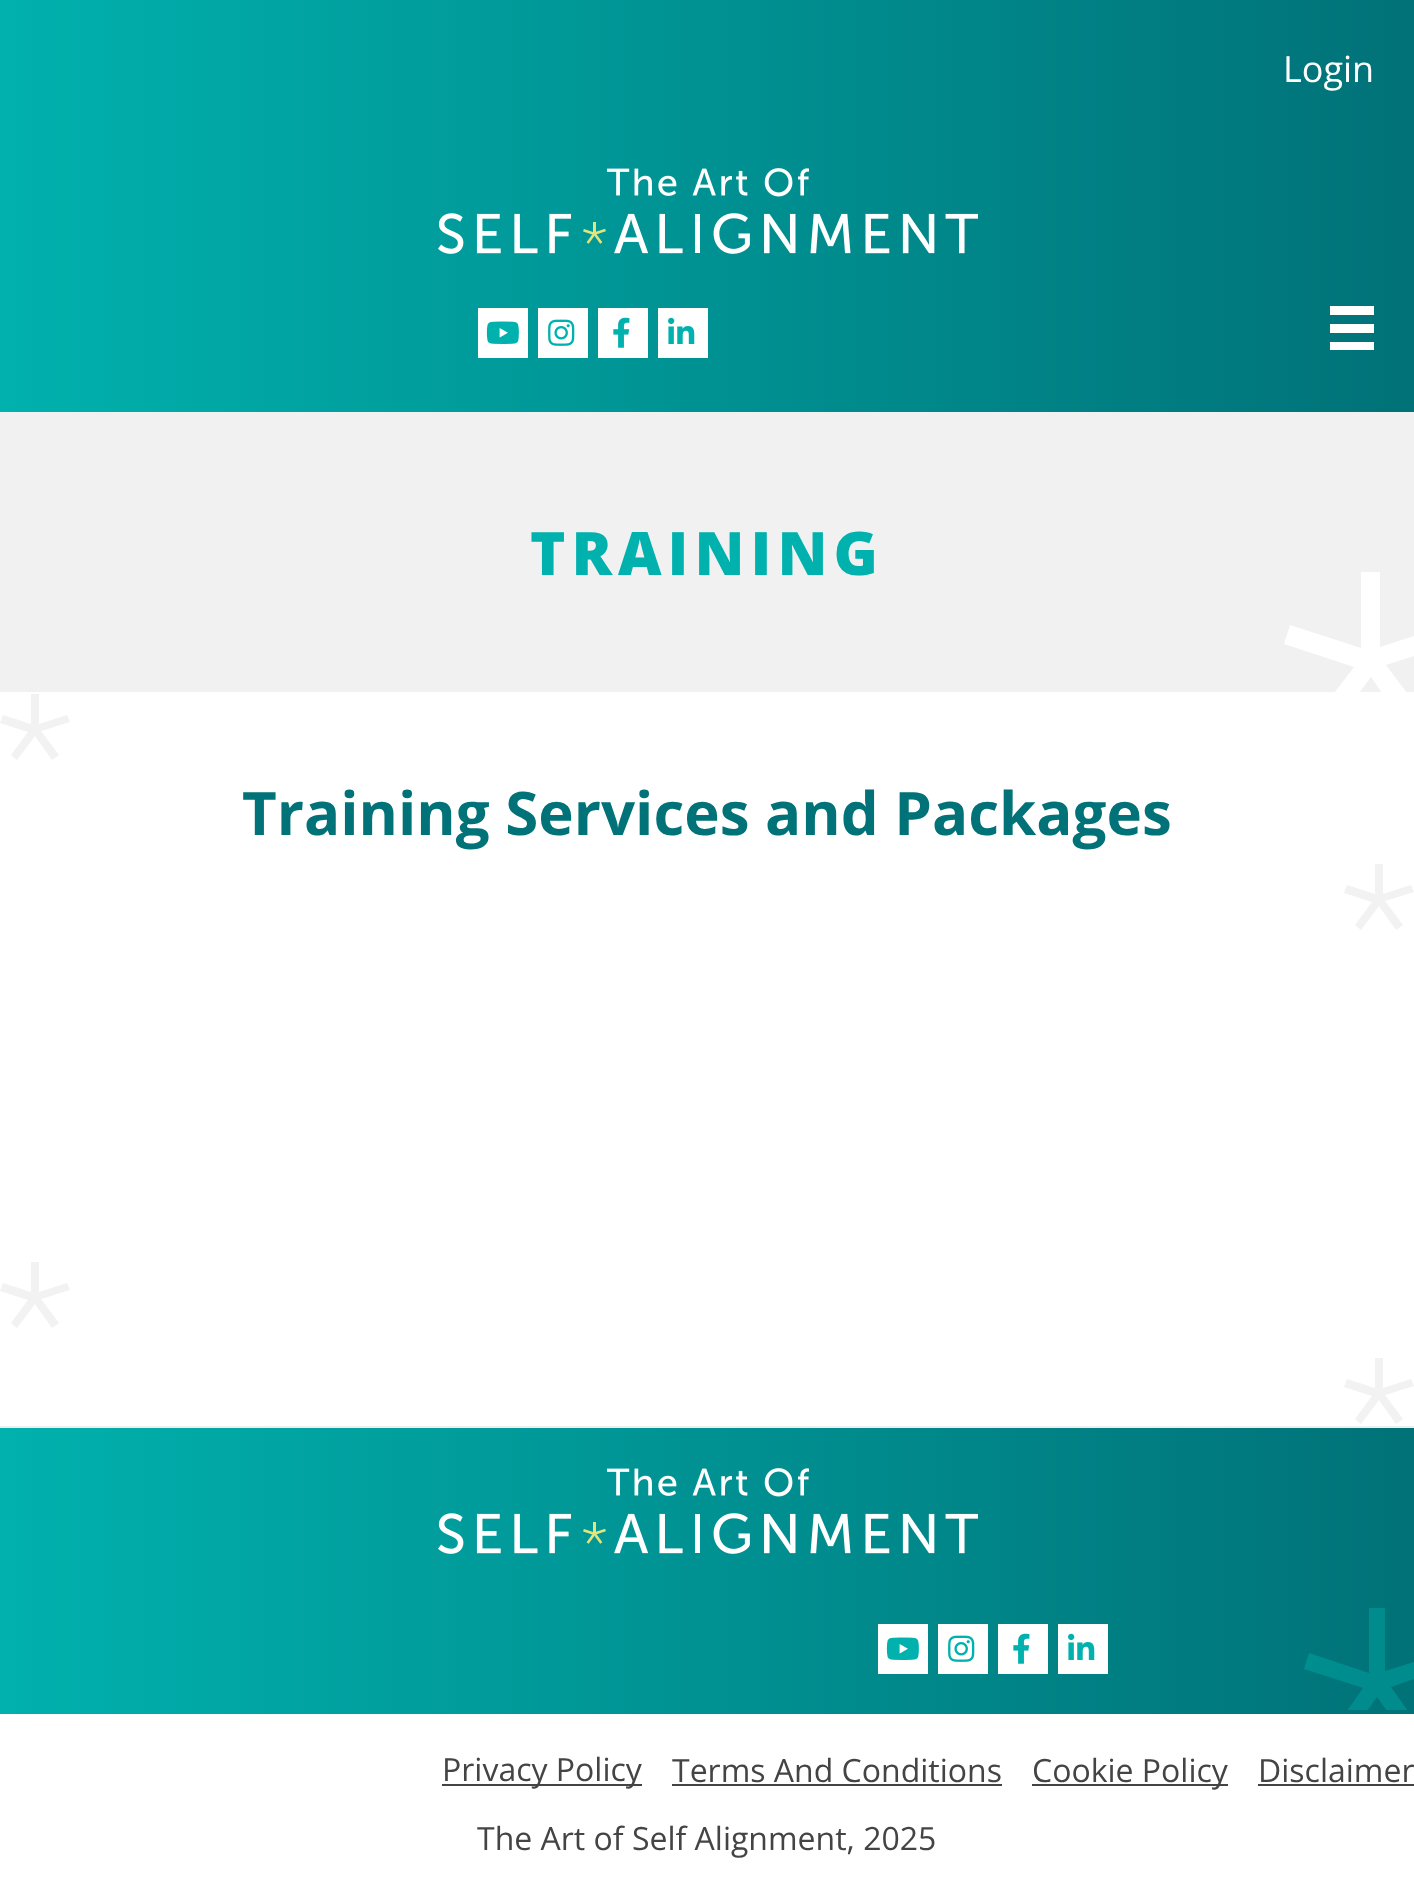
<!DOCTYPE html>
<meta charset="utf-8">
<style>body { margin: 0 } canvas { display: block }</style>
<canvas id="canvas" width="1414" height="1896"></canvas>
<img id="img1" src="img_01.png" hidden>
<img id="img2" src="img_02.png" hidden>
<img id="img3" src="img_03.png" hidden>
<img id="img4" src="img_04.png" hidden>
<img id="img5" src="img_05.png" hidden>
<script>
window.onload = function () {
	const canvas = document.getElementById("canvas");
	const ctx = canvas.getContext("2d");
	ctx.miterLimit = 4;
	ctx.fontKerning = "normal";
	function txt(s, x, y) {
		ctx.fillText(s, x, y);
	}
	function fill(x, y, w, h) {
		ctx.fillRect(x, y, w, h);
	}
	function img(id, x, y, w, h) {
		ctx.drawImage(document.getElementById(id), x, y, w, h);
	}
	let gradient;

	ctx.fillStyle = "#FFFFFF";
	fill(0, 0, 1414, 1896);
	gradient = ctx.createLinearGradient(0, 206, 1414, 206);
	gradient.addColorStop(0, "#00B1AD");
	gradient.addColorStop(1, "#007278");
	ctx.fillStyle = gradient;
	fill(0, 0, 1414, 412);
	img("img1", 438, 168, 540, 86);
	ctx.fillStyle = "#FFFFFF";
	fill(478, 308, 50, 50);
	img("img2", 486, 321, 33, 23);
	fill(538, 308, 50, 50);
	img("img3", 548, 319, 27, 27);
	fill(598, 308, 50, 50);
	img("img4", 613, 317, 17, 31);
	fill(658, 308, 50, 50);
	img("img5", 668, 317, 27, 27);
	fill(1330, 306, 44, 9);
	fill(1330, 324, 44, 9);
	fill(1330, 342, 44, 8);
	ctx.fillStyle = "#F1F1F1";
	fill(0, 412, 1414, 280);
	ctx.save();
	ctx.beginPath();
	ctx.rect(1284, 572, 130, 120);
	ctx.clip();
	ctx.fillStyle = "#FFFFFF";
	ctx.beginPath();
	ctx.moveTo(1382, 693);
	ctx.lineTo(1371, 677);
	ctx.lineTo(1359, 693);
	ctx.lineTo(1334, 693);
	ctx.lineTo(1354, 667);
	ctx.lineTo(1284, 644);
	ctx.lineTo(1290, 625);
	ctx.lineTo(1361, 648);
	ctx.lineTo(1361, 572);
	ctx.lineTo(1380, 572);
	ctx.lineTo(1380, 647);
	ctx.lineTo(1414, 636);
	ctx.lineTo(1414, 656);
	ctx.lineTo(1386, 665);
	ctx.lineTo(1407, 693);
	ctx.closePath();
	ctx.fill();
	ctx.restore();
	ctx.fillStyle = "#F2F2F2";
	ctx.beginPath();
	ctx.moveTo(11, 755);
	ctx.lineTo(28, 732);
	ctx.lineTo(0, 723);
	ctx.lineTo(3, 715);
	ctx.lineTo(31, 724);
	ctx.lineTo(31, 694);
	ctx.lineTo(39, 694);
	ctx.lineTo(39, 724);
	ctx.lineTo(67, 715);
	ctx.lineTo(70, 722);
	ctx.lineTo(41, 731);
	ctx.lineTo(59, 755);
	ctx.lineTo(52, 760);
	ctx.lineTo(35, 736);
	ctx.lineTo(17, 760);
	ctx.closePath();
	ctx.fill();
	ctx.beginPath();
	ctx.moveTo(1355, 925);
	ctx.lineTo(1372, 902);
	ctx.lineTo(1344, 893);
	ctx.lineTo(1347, 885);
	ctx.lineTo(1375, 894);
	ctx.lineTo(1375, 864);
	ctx.lineTo(1383, 864);
	ctx.lineTo(1383, 894);
	ctx.lineTo(1411, 885);
	ctx.lineTo(1414, 892);
	ctx.lineTo(1385, 901);
	ctx.lineTo(1403, 925);
	ctx.lineTo(1396, 930);
	ctx.lineTo(1379, 906);
	ctx.lineTo(1361, 930);
	ctx.closePath();
	ctx.fill();
	ctx.beginPath();
	ctx.moveTo(11, 1323);
	ctx.lineTo(28, 1300);
	ctx.lineTo(0, 1291);
	ctx.lineTo(3, 1283);
	ctx.lineTo(31, 1292);
	ctx.lineTo(31, 1262);
	ctx.lineTo(39, 1262);
	ctx.lineTo(39, 1292);
	ctx.lineTo(67, 1283);
	ctx.lineTo(70, 1290);
	ctx.lineTo(41, 1299);
	ctx.lineTo(59, 1323);
	ctx.lineTo(52, 1328);
	ctx.lineTo(35, 1304);
	ctx.lineTo(17, 1328);
	ctx.closePath();
	ctx.fill();
	ctx.beginPath();
	ctx.moveTo(1355, 1419);
	ctx.lineTo(1372, 1396);
	ctx.lineTo(1344, 1387);
	ctx.lineTo(1347, 1379);
	ctx.lineTo(1375, 1388);
	ctx.lineTo(1375, 1358);
	ctx.lineTo(1383, 1358);
	ctx.lineTo(1383, 1388);
	ctx.lineTo(1411, 1379);
	ctx.lineTo(1414, 1386);
	ctx.lineTo(1385, 1395);
	ctx.lineTo(1403, 1419);
	ctx.lineTo(1396, 1424);
	ctx.lineTo(1379, 1400);
	ctx.lineTo(1361, 1424);
	ctx.closePath();
	ctx.fill();
	ctx.fillStyle = "#EEEEEE";
	fill(0, 1426, 1414, 2);
	gradient = ctx.createLinearGradient(0, 1571, 1414, 1571);
	gradient.addColorStop(0, "#00B1AD");
	gradient.addColorStop(1, "#007278");
	ctx.fillStyle = gradient;
	fill(0, 1428, 1414, 286);
	img("img1", 438, 1468, 540, 86);
	ctx.fillStyle = "#FFFFFF";
	fill(878, 1624, 50, 50);
	img("img2", 886, 1637, 33, 23);
	fill(938, 1624, 50, 50);
	img("img3", 948, 1635, 27, 27);
	fill(998, 1624, 50, 50);
	img("img4", 1013, 1633, 17, 31);
	fill(1058, 1624, 50, 50);
	img("img5", 1068, 1633, 27, 27);
	ctx.save();
	ctx.beginPath();
	ctx.rect(1304, 1608, 110, 102);
	ctx.clip();
	ctx.fillStyle = "rgba(0, 177, 173, 0.4)";
	ctx.beginPath();
	ctx.moveTo(1387, 1711);
	ctx.lineTo(1377, 1697);
	ctx.lineTo(1367, 1711);
	ctx.lineTo(1347, 1711);
	ctx.lineTo(1363, 1688);
	ctx.lineTo(1304, 1669);
	ctx.lineTo(1309, 1653);
	ctx.lineTo(1369, 1673);
	ctx.lineTo(1369, 1608);
	ctx.lineTo(1385, 1608);
	ctx.lineTo(1385, 1671);
	ctx.lineTo(1414, 1662);
	ctx.lineTo(1414, 1679);
	ctx.lineTo(1391, 1687);
	ctx.lineTo(1408, 1711);
	ctx.closePath();
	ctx.fill();
	ctx.restore();
	ctx.fillStyle = "#444444";
	fill(442, 1784, 200, 2);
	fill(672, 1784, 330, 2);
	fill(1032, 1784, 196, 2);
	fill(1258, 1784, 156, 2);
	ctx.font = "36px Open Sans";
	ctx.fillStyle = "#FFFFFF";
	txt("Login", 1283, 82);
	ctx.letterSpacing = "6px";
	ctx.font = "800 60px Open Sans";
	ctx.fillStyle = "#00B1AD";
	txt("TRAINING", 530, 575);
	ctx.letterSpacing = "0px";
	ctx.font = "bold 60px Open Sans";
	ctx.fillStyle = "#007278";
	txt("Training Services and Packages", 242, 835);
	ctx.font = "32px Open Sans";
	ctx.fillStyle = "#444444";
	txt("Privacy Policy", 442, 1781);
	txt("Terms And Conditions", 672, 1782);
	txt("Cookie Policy", 1032, 1782);
	txt("Disclaimer", 1258, 1782);
	txt("The Art of Self Alignment, 2025", 477, 1850);
};
</script>
